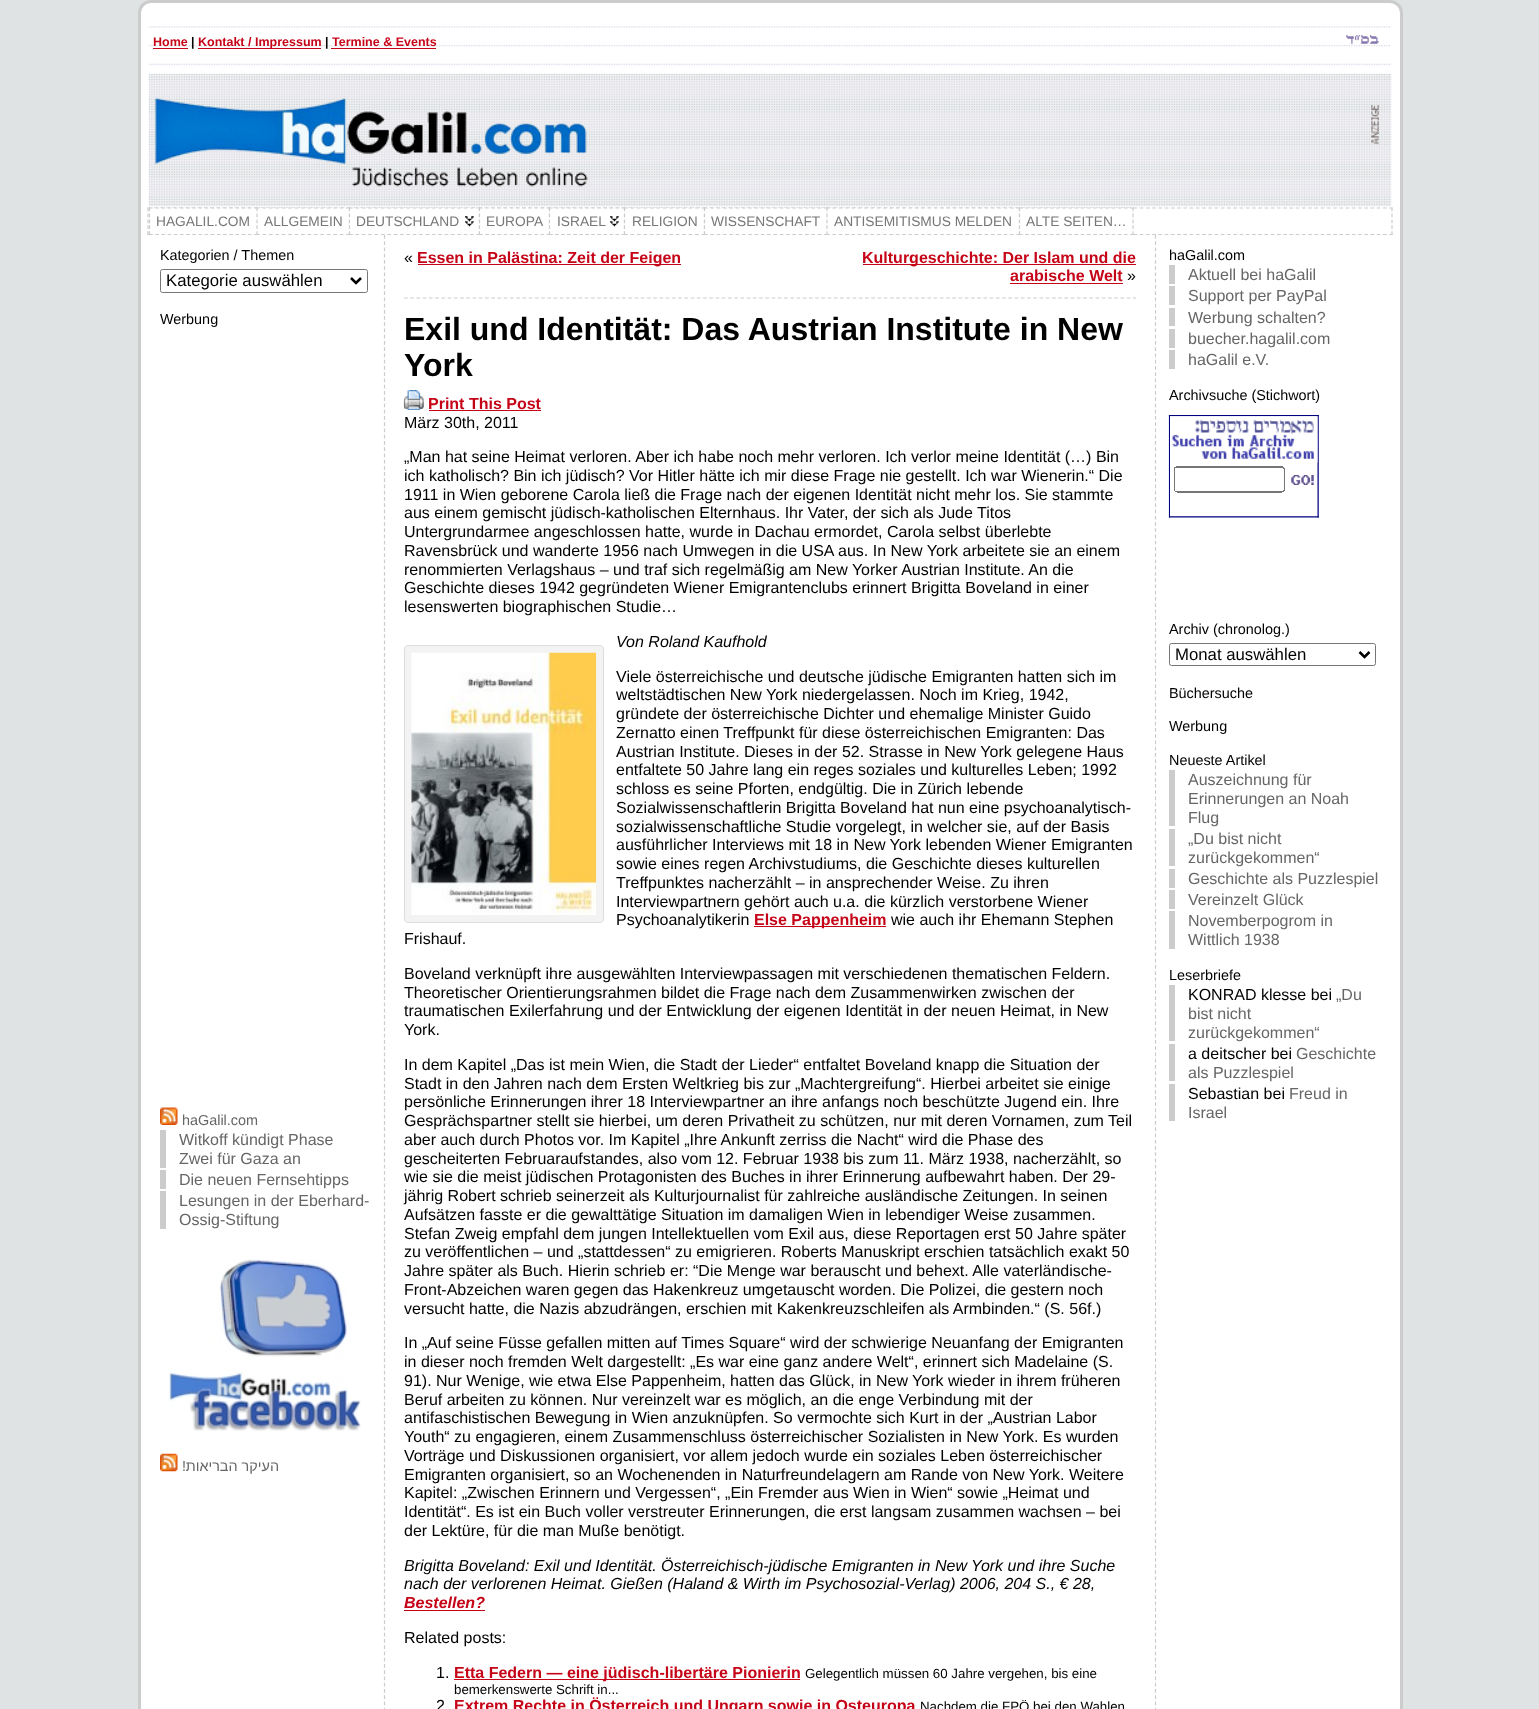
<!DOCTYPE html>
<meta charset="utf-8">
<style>body { margin: 0 } canvas { display: block }</style>
<canvas id="canvas" width="1539" height="1709"></canvas>
<img id="img1" src="img_01.png" hidden>
<img id="img2" src="img_02.png" hidden>
<img id="img3" src="img_03.png" hidden>
<img id="img4" src="img_04.png" hidden>
<img id="img5" src="img_05.png" hidden>
<img id="img6" src="img_06.png" hidden>
<img id="img7" src="img_07.png" hidden>
<img id="img8" src="img_08.png" hidden>
<img id="img9" src="img_09.png" hidden>
<img id="img10" src="img_10.png" hidden>
<img id="img11" src="img_11.png" hidden>
<img id="img12" src="img_12.png" hidden>
<img id="img13" src="img_13.png" hidden>
<script>
window.onload = function () {
	const canvas = document.getElementById("canvas");
	const ctx = canvas.getContext("2d");
	ctx.miterLimit = 4;
	ctx.fontKerning = "normal";
	function txt(s, x, y) {
		ctx.fillText(s, x, y);
	}
	function fill(x, y, w, h) {
		ctx.fillRect(x, y, w, h);
	}
	function img(id, x, y, w, h) {
		ctx.drawImage(document.getElementById(id), x, y, w, h);
	}

	ctx.fillStyle = "#E0E3E4";
	fill(0, 0, 1539, 1709);
	ctx.fillStyle = "#FFFFFF";
	ctx.beginPath();
	ctx.roundRect(139.5, 1.5, 1262, 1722, 11.5);
	ctx.fill();
	ctx.strokeStyle = "#CCCCCC";
	ctx.lineWidth = 3;
	ctx.stroke();
	img("img1", 149, 26, 1243, 40);
	ctx.fillStyle = "#C60417";
	fill(153, 48, 35, 1);
	fill(198, 48, 123, 1);
	fill(331, 48, 105, 1);
	img("img2", 1346, 34, 33, 10);
	img("img3", 148, 73, 1244, 134);
	img("img4", 154, 97, 434, 90);
	img("img5", 1371, 104, 8, 41);
	ctx.beginPath();
	ctx.moveTo(147.5, 208);
	ctx.lineTo(1392.5, 208);
	ctx.lineWidth = 1.2;
	ctx.setLineDash([3.75, 2.49]);
	ctx.stroke();
	ctx.beginPath();
	ctx.moveTo(1392, 207.5);
	ctx.lineTo(1392, 235);
	ctx.setLineDash([3.75, 2.19]);
	ctx.stroke();
	ctx.beginPath();
	ctx.moveTo(147.5, 234.5);
	ctx.lineTo(1392.5, 234.5);
	ctx.setLineDash([3.75, 2.49]);
	ctx.stroke();
	ctx.beginPath();
	ctx.moveTo(148, 207.5);
	ctx.lineTo(148, 235);
	ctx.setLineDash([3.75, 2.19]);
	ctx.stroke();
	ctx.fillStyle = "#FFFFFF";
	fill(149, 208, 107, 27);
	ctx.beginPath();
	ctx.moveTo(149, 208);
	ctx.lineTo(257.5, 208);
	ctx.setLineDash([3.75, 2.42]);
	ctx.stroke();
	ctx.beginPath();
	ctx.moveTo(257, 207.5);
	ctx.lineTo(257, 235);
	ctx.setLineDash([3.75, 2.19]);
	ctx.stroke();
	ctx.beginPath();
	ctx.moveTo(149, 234.5);
	ctx.lineTo(257.5, 234.5);
	ctx.setLineDash([3.75, 2.42]);
	ctx.stroke();
	ctx.beginPath();
	ctx.moveTo(149.5, 207.5);
	ctx.lineTo(149.5, 235);
	ctx.setLineDash([3.75, 2.19]);
	ctx.stroke();
	fill(256, 208, 93, 27);
	ctx.beginPath();
	ctx.moveTo(256, 208);
	ctx.lineTo(350, 208);
	ctx.setLineDash([3.75, 2.68]);
	ctx.stroke();
	ctx.beginPath();
	ctx.moveTo(349.5, 207.5);
	ctx.lineTo(349.5, 235);
	ctx.setLineDash([3.75, 2.19]);
	ctx.stroke();
	ctx.beginPath();
	ctx.moveTo(256, 234.5);
	ctx.lineTo(350, 234.5);
	ctx.setLineDash([3.75, 2.68]);
	ctx.stroke();
	ctx.beginPath();
	ctx.moveTo(257, 207.5);
	ctx.lineTo(257, 235);
	ctx.setLineDash([3.75, 2.19]);
	ctx.stroke();
	fill(349, 208, 130, 27);
	img("img6", 465, 216, 9, 11);
	ctx.beginPath();
	ctx.moveTo(349, 208);
	ctx.lineTo(480, 208);
	ctx.setLineDash([3.75, 2.62]);
	ctx.stroke();
	ctx.beginPath();
	ctx.moveTo(479.5, 207.5);
	ctx.lineTo(479.5, 235);
	ctx.setLineDash([3.75, 2.19]);
	ctx.stroke();
	ctx.beginPath();
	ctx.moveTo(384.5, 235);
	ctx.lineTo(384.5, 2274);
	ctx.setLineDash([3.75, 2.49]);
	ctx.stroke();
	ctx.beginPath();
	ctx.moveTo(349, 234.5);
	ctx.lineTo(480, 234.5);
	ctx.setLineDash([3.75, 2.62]);
	ctx.stroke();
	ctx.beginPath();
	ctx.moveTo(349.5, 207.5);
	ctx.lineTo(349.5, 235);
	ctx.setLineDash([3.75, 2.19]);
	ctx.stroke();
	fill(479, 208, 70, 27);
	ctx.beginPath();
	ctx.moveTo(479, 208);
	ctx.lineTo(550, 208);
	ctx.setLineDash([3.75, 2.39]);
	ctx.stroke();
	ctx.beginPath();
	ctx.moveTo(549.5, 207.5);
	ctx.lineTo(549.5, 235);
	ctx.setLineDash([3.75, 2.19]);
	ctx.stroke();
	ctx.beginPath();
	ctx.moveTo(479, 234.5);
	ctx.lineTo(550, 234.5);
	ctx.setLineDash([3.75, 2.39]);
	ctx.stroke();
	ctx.beginPath();
	ctx.moveTo(479.5, 207.5);
	ctx.lineTo(479.5, 235);
	ctx.setLineDash([3.75, 2.19]);
	ctx.stroke();
	fill(549, 208, 75, 27);
	img("img7", 610, 216, 9, 11);
	ctx.beginPath();
	ctx.moveTo(549, 208);
	ctx.lineTo(625, 208);
	ctx.setLineDash([3.75, 2.29]);
	ctx.stroke();
	ctx.beginPath();
	ctx.moveTo(624.5, 207.5);
	ctx.lineTo(624.5, 235);
	ctx.setLineDash([3.75, 2.19]);
	ctx.stroke();
	ctx.beginPath();
	ctx.moveTo(549, 234.5);
	ctx.lineTo(625, 234.5);
	ctx.setLineDash([3.75, 2.29]);
	ctx.stroke();
	ctx.beginPath();
	ctx.moveTo(549.5, 207.5);
	ctx.lineTo(549.5, 235);
	ctx.setLineDash([3.75, 2.19]);
	ctx.stroke();
	fill(624, 208, 80, 27);
	ctx.beginPath();
	ctx.moveTo(624, 208);
	ctx.lineTo(705, 208);
	ctx.setLineDash([3.75, 2.71]);
	ctx.stroke();
	ctx.beginPath();
	ctx.moveTo(704.5, 207.5);
	ctx.lineTo(704.5, 235);
	ctx.setLineDash([3.75, 2.19]);
	ctx.stroke();
	ctx.beginPath();
	ctx.moveTo(624, 234.5);
	ctx.lineTo(705, 234.5);
	ctx.setLineDash([3.75, 2.71]);
	ctx.stroke();
	ctx.beginPath();
	ctx.moveTo(624.5, 207.5);
	ctx.lineTo(624.5, 235);
	ctx.setLineDash([3.75, 2.19]);
	ctx.stroke();
	fill(704, 208, 122, 27);
	ctx.beginPath();
	ctx.moveTo(704, 208);
	ctx.lineTo(827.5, 208);
	ctx.setLineDash([3.75, 2.56]);
	ctx.stroke();
	ctx.beginPath();
	ctx.moveTo(827, 207.5);
	ctx.lineTo(827, 235);
	ctx.setLineDash([3.75, 2.19]);
	ctx.stroke();
	ctx.beginPath();
	ctx.moveTo(704, 234.5);
	ctx.lineTo(827.5, 234.5);
	ctx.setLineDash([3.75, 2.56]);
	ctx.stroke();
	ctx.beginPath();
	ctx.moveTo(704.5, 207.5);
	ctx.lineTo(704.5, 235);
	ctx.setLineDash([3.75, 2.19]);
	ctx.stroke();
	fill(826, 208, 193, 27);
	ctx.beginPath();
	ctx.moveTo(826, 208);
	ctx.lineTo(1020, 208);
	ctx.setLineDash([3.75, 2.59]);
	ctx.stroke();
	ctx.beginPath();
	ctx.moveTo(1019.5, 207.5);
	ctx.lineTo(1019.5, 235);
	ctx.setLineDash([3.75, 2.19]);
	ctx.stroke();
	ctx.beginPath();
	ctx.moveTo(826, 234.5);
	ctx.lineTo(1020, 234.5);
	ctx.setLineDash([3.75, 2.59]);
	ctx.stroke();
	ctx.beginPath();
	ctx.moveTo(827, 207.5);
	ctx.lineTo(827, 235);
	ctx.setLineDash([3.75, 2.19]);
	ctx.stroke();
	fill(1019, 208, 115, 27);
	ctx.beginPath();
	ctx.moveTo(1019, 208);
	ctx.lineTo(1134, 208);
	ctx.setLineDash([3.75, 2.42]);
	ctx.stroke();
	ctx.beginPath();
	ctx.moveTo(1133, 207.5);
	ctx.lineTo(1133, 235);
	ctx.setLineDash([3.75, 2.19]);
	ctx.stroke();
	ctx.beginPath();
	ctx.moveTo(1019, 234.5);
	ctx.lineTo(1134, 234.5);
	ctx.setLineDash([3.75, 2.42]);
	ctx.stroke();
	ctx.beginPath();
	ctx.moveTo(1019.5, 207.5);
	ctx.lineTo(1019.5, 235);
	ctx.setLineDash([3.75, 2.19]);
	ctx.stroke();
	ctx.beginPath();
	ctx.roundRect(160.5, 269.5, 207, 23, 2);
	ctx.strokeStyle = "#767676";
	ctx.lineWidth = 1;
	ctx.setLineDash([]);
	ctx.stroke();
	ctx.beginPath();
	ctx.moveTo(351, 278);
	ctx.lineTo(356, 283);
	ctx.lineTo(361, 278);
	ctx.strokeStyle = "#000000";
	ctx.lineWidth = 2.5;
	ctx.stroke();
	img("img8", 160, 1107, 18, 18);
	ctx.fillStyle = "#CCCCCC";
	fill(160, 1130, 6, 38);
	fill(160, 1170, 6, 19);
	fill(160, 1191, 6, 38);
	img("img9", 168, 1259, 193, 172);
	img("img10", 160, 1453, 18, 19);
	ctx.beginPath();
	ctx.moveTo(404, 298);
	ctx.lineTo(1136, 298);
	ctx.strokeStyle = "#CCCCCC";
	ctx.lineWidth = 1.2;
	ctx.setLineDash([3.75, 2.48]);
	ctx.stroke();
	ctx.fillStyle = "#C60417";
	fill(418, 264, 263, 1);
	fill(863, 264, 273, 1);
	fill(1010, 283, 113, 1);
	img("img11", 403, 390, 21, 20);
	fill(429, 410, 112, 1);
	ctx.fillStyle = "#F3F3F3";
	ctx.beginPath();
	ctx.roundRect(404.5, 645.5, 199, 277, 3.5);
	ctx.fill();
	ctx.strokeStyle = "#DDDDDD";
	ctx.lineWidth = 1;
	ctx.setLineDash([]);
	ctx.stroke();
	img("img12", 411, 652, 186, 263);
	ctx.fillStyle = "#C60417";
	fill(754, 926, 132, 1);
	fill(404, 1610, 81, 1);
	fill(454, 1679, 346, 1);
	ctx.beginPath();
	ctx.moveTo(1155.5, 235);
	ctx.lineTo(1155.5, 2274);
	ctx.strokeStyle = "#CCCCCC";
	ctx.lineWidth = 1.2;
	ctx.setLineDash([3.75, 2.49]);
	ctx.stroke();
	ctx.fillStyle = "#CCCCCC";
	fill(1169, 265, 6, 19);
	fill(1169, 286, 6, 19);
	fill(1169, 308, 6, 18);
	fill(1169, 329, 6, 19);
	fill(1169, 350, 6, 19);
	img("img13", 1168, 415, 151, 103);
	ctx.beginPath();
	ctx.roundRect(1169.5, 643.5, 206, 22, 2);
	ctx.strokeStyle = "#767676";
	ctx.lineWidth = 1;
	ctx.setLineDash([]);
	ctx.stroke();
	ctx.beginPath();
	ctx.moveTo(1359.5, 652);
	ctx.lineTo(1364.5, 657);
	ctx.lineTo(1369.5, 652);
	ctx.strokeStyle = "#000000";
	ctx.lineWidth = 2.5;
	ctx.stroke();
	fill(1169, 770, 6, 56);
	fill(1169, 829, 6, 37);
	fill(1169, 869, 6, 19);
	fill(1169, 890, 6, 19);
	fill(1169, 911, 6, 38);
	fill(1169, 985, 6, 56);
	fill(1169, 1044, 6, 37);
	fill(1169, 1084, 6, 37);
	ctx.font = "bold 12.5px Liberation Sans";
	ctx.fillStyle = "#C60417";
	txt("Home", 153, 46);
	ctx.fillStyle = "#000000";
	txt("|", 191, 46);
	ctx.fillStyle = "#C60417";
	txt("Kontakt / Impressum", 198, 46);
	ctx.fillStyle = "#000000";
	txt("|", 325, 46);
	ctx.fillStyle = "#C60417";
	txt("Termine & Events", 332, 46);
	ctx.font = "13.75px Liberation Sans";
	ctx.fillStyle = "#777777";
	txt("HAGALIL.COM", 156, 226);
	txt("ALLGEMEIN", 264, 226);
	txt("DEUTSCHLAND", 356, 226);
	txt("EUROPA", 486, 226);
	txt("ISRAEL", 557, 226);
	txt("RELIGION", 632, 226);
	txt("WISSENSCHAFT", 711, 226);
	txt("ANTISEMITISMUS MELDEN", 834, 226);
	txt("ALTE SEITEN…", 1026, 226);
	ctx.font = "14.4px Liberation Sans";
	ctx.fillStyle = "#000000";
	txt("Kategorien / Themen", 160, 260);
	ctx.font = "16.75px Liberation Sans";
	txt("Kategorie auswählen", 166, 286);
	ctx.font = "14.4px Liberation Sans";
	txt("Werbung", 160, 324);
	ctx.fillStyle = "#666666";
	txt("haGalil.com", 182, 1125);
	ctx.font = "16px Liberation Sans";
	txt("Witkoff kündigt Phase", 179, 1145);
	txt("Zwei für Gaza an", 179, 1164);
	txt("Die neuen Fernsehtipps", 179, 1185);
	txt("Lesungen in der Eberhard-", 179, 1206);
	txt("Ossig-Stiftung", 179, 1225);
	ctx.font = "14.4px Liberation Sans";
	txt("!", 182, 1471);
	ctx.direction = "rtl";
	txt("העיקר הבריאות", 279, 1471);
	ctx.direction = "ltr";
	ctx.font = "16px Liberation Sans";
	ctx.fillStyle = "#000000";
	txt("«", 404, 263);
	ctx.font = "bold 16px Liberation Sans";
	ctx.fillStyle = "#C60417";
	txt("Essen in Palästina: Zeit der Feigen", 417, 263);
	txt("Kulturgeschichte: Der Islam und die", 862, 263);
	txt("arabische Welt", 1010, 281);
	ctx.font = "16px Liberation Sans";
	ctx.fillStyle = "#000000";
	txt("»", 1127, 281);
	ctx.font = "bold 32px Liberation Sans";
	txt("Exil und Identität: Das Austrian Institute in New", 404, 340);
	txt("York", 404, 376);
	ctx.font = "bold 16px Liberation Sans";
	ctx.fillStyle = "#C60417";
	txt("Print This Post", 428, 409);
	ctx.font = "16px Liberation Sans";
	ctx.fillStyle = "#000000";
	txt("März 30th, 2011", 404, 428);
	txt("„Man hat seine Heimat verloren. Aber ich habe noch mehr verloren. Ich verlor meine Identität (…) Bin", 404, 462);
	txt("ich katholisch? Bin ich jüdisch? Vor Hitler hätte ich mir diese Frage nie gestellt. Ich war Wienerin.“ Die", 404, 481);
	txt("1911 in Wien geborene Carola ließ die Frage nach der eigenen Identität nicht mehr los. Sie stammte", 404, 500);
	txt("aus einem gemischt jüdisch-katholischen Elternhaus. Ihr Vater, der sich als Jude Titos", 404, 518);
	txt("Untergrundarmee angeschlossen hatte, wurde in Dachau ermordet, Carola selbst überlebte", 404, 537);
	txt("Ravensbrück und wanderte 1956 nach Umwegen in die USA aus. In New York arbeitete sie an einem", 404, 556);
	txt("renommierten Verlagshaus – und traf sich regelmäßig am New Yorker Austrian Institute. An die", 404, 575);
	txt("Geschichte dieses 1942 gegründeten Wiener Emigrantenclubs erinnert Brigitta Boveland in einer", 404, 593);
	txt("lesenswerten biographischen Studie…", 404, 612);
	ctx.font = "italic 16px Liberation Sans";
	txt("Von Roland Kaufhold", 616, 647);
	ctx.font = "16px Liberation Sans";
	txt("Viele österreichische und deutsche jüdische Emigranten hatten sich im", 616, 682);
	txt("weltstädtischen New York niedergelassen. Noch im Krieg, 1942,", 616, 700);
	txt("gründete der österreichische Dichter und ehemalige Minister Guido", 616, 719);
	txt("Zernatto einen Treffpunkt für diese österreichischen Emigranten: Das", 616, 738);
	txt("Austrian Institute. Dieses in der 52. Strasse in New York gelegene Haus", 616, 757);
	txt("entfaltete 50 Jahre lang ein reges soziales und kulturelles Leben; 1992", 616, 775);
	txt("schloss es seine Pforten, endgültig. Die in Zürich lebende", 616, 794);
	txt("Sozialwissenschaftlerin Brigitta Boveland hat nun eine psychoanalytisch-", 616, 813);
	txt("sozialwissenschaftliche Studie vorgelegt, in welcher sie, auf der Basis", 616, 832);
	txt("ausführlicher Interviews mit 18 in New York lebenden Wiener Emigranten", 616, 850);
	txt("sowie eines regen Archivstudiums, die Geschichte dieses kulturellen", 616, 869);
	txt("Treffpunktes nacherzählt – in ansprechender Weise. Zu ihren", 616, 888);
	txt("Interviewpartnern gehört auch u.a. die kürzlich verstorbene Wiener", 616, 907);
	txt("Psychoanalytikerin", 616, 925);
	ctx.font = "bold 16px Liberation Sans";
	ctx.fillStyle = "#C60417";
	txt("Else Pappenheim", 754, 925);
	ctx.font = "16px Liberation Sans";
	ctx.fillStyle = "#000000";
	txt("wie auch ihr Ehemann Stephen", 891, 925);
	txt("Frishauf.", 404, 944);
	txt("Boveland verknüpft ihre ausgewählten Interviewpassagen mit verschiedenen thematischen Feldern.", 404, 979);
	txt("Theoretischer Orientierungsrahmen bildet die Frage nach dem Zusammenwirken zwischen der", 404, 998);
	txt("traumatischen Exilerfahrung und der Entwicklung der eigenen Identität in der neuen Heimat, in New", 404, 1016);
	txt("York.", 404, 1035);
	txt("In dem Kapitel „Das ist mein Wien, die Stadt der Lieder“ entfaltet Boveland knapp die Situation der", 404, 1070);
	txt("Stadt in den Jahren nach dem Ersten Weltkrieg bis zur „Machtergreifung“. Hierbei arbeitet sie einige", 404, 1089);
	txt("persönliche Erinnerungen ihrer 18 Interviewpartner an ihre anfangs noch beschützte Jugend ein. Ihre", 404, 1107);
	txt("Gesprächspartner stellt sie hierbei, um deren Privatheit zu schützen, nur mit deren Vornamen, zum Teil", 404, 1126);
	txt("aber auch durch Photos vor. Im Kapitel „Ihre Ankunft zerriss die Nacht“ wird die Phase des", 404, 1145);
	txt("gescheiterten Februaraufstandes, also vom 12. Februar 1938 bis zum 11. März 1938, nacherzählt, so", 404, 1164);
	txt("wie sie die meist jüdischen Protagonisten des Buches in ihrer Erinnerung aufbewahrt haben. Der 29-", 404, 1182);
	txt("jährig Robert schrieb seinerzeit als Kulturjournalist für zahlreiche ausländische Zeitungen. In seinen", 404, 1201);
	txt("Aufsätzen fasste er die gewalttätige Situation im damaligen Wien in lebendiger Weise zusammen.", 404, 1220);
	txt("Stefan Zweig empfahl dem jungen Intellektuellen vom Exil aus, diese Reportagen erst 50 Jahre später", 404, 1239);
	txt("zu veröffentlichen – und „stattdessen“ zu emigrieren. Roberts Manuskript erschien tatsächlich exakt 50", 404, 1257);
	txt("Jahre später als Buch. Hierin schrieb er: “Die Menge war berauscht und behext. Alle vaterländische-", 404, 1276);
	txt("Front-Abzeichen waren gegen das Hakenkreuz umgetauscht worden. Die Polizei, die gestern noch", 404, 1295);
	txt("versucht hatte, die Nazis abzudrängen, erschien mit Kakenkreuzschleifen als Armbinden.“ (S. 56f.)", 404, 1314);
	txt("In „Auf seine Füsse gefallen mitten auf Times Square“ wird der schwierige Neuanfang der Emigranten", 404, 1348);
	txt("in dieser noch fremden Welt dargestellt: „Es war eine ganz andere Welt“, erinnert sich Madelaine (S.", 404, 1367);
	txt("91). Nur Wenige, wie etwa Else Pappenheim, hatten das Glück, in New York wieder in ihrem früheren", 404, 1386);
	txt("Beruf arbeiten zu können. Nur vereinzelt war es möglich, an die enge Verbindung mit der", 404, 1405);
	txt("antifaschistischen Bewegung in Wien anzuknüpfen. So vermochte sich Kurt in der „Austrian Labor", 404, 1423);
	txt("Youth“ zu engagieren, einem Zusammenschluss österreichischer Sozialisten in New York. Es wurden", 404, 1442);
	txt("Vorträge und Diskussionen organisiert, vor allem jedoch wurde ein soziales Leben österreichischer", 404, 1461);
	txt("Emigranten organisiert, so an Wochenenden in Naturfreundelagern am Rande von New York. Weitere", 404, 1480);
	txt("Kapitel: „Zwischen Erinnern und Vergessen“, „Ein Fremder aus Wien in Wien“ sowie „Heimat und", 404, 1498);
	txt("Identität“. Es ist ein Buch voller verstreuter Erinnerungen, die erst langsam zusammen wachsen – bei", 404, 1517);
	txt("der Lektüre, für die man Muße benötigt.", 404, 1536);
	ctx.font = "italic 16px Liberation Sans";
	txt("Brigitta Boveland: Exil und Identität. Österreichisch-jüdische Emigranten in New York und ihre Suche", 404, 1571);
	txt("nach der verlorenen Heimat. Gießen (Haland & Wirth im Psychosozial-Verlag) 2006, 204 S., € 28,", 404, 1589);
	ctx.font = "italic bold 16px Liberation Sans";
	ctx.fillStyle = "#C60417";
	txt("Bestellen?", 404, 1608);
	ctx.font = "16px Liberation Sans";
	ctx.fillStyle = "#000000";
	txt("Related posts:", 404, 1643);
	txt("1.", 436, 1678);
	ctx.font = "bold 16px Liberation Sans";
	ctx.fillStyle = "#C60417";
	txt("Etta Federn — eine jüdisch-libertäre Pionierin", 454, 1678);
	ctx.font = "13.3px Liberation Sans";
	ctx.fillStyle = "#000000";
	txt("Gelegentlich müssen 60 Jahre vergehen, bis eine", 805, 1678);
	txt("bemerkenswerte Schrift in...", 454, 1694);
	ctx.font = "16px Liberation Sans";
	txt("2", 436, 1711);
	ctx.font = "bold 16px Liberation Sans";
	ctx.fillStyle = "#C60417";
	txt("Extrem Rechte in Österreich und Ungarn sowie in Osteuropa", 454, 1711);
	ctx.font = "13.3px Liberation Sans";
	ctx.fillStyle = "#000000";
	txt("Nachdem die FPÖ bei den Wahlen", 920, 1711);
	ctx.font = "14.4px Liberation Sans";
	txt("haGalil.com", 1169, 260);
	ctx.font = "16px Liberation Sans";
	ctx.fillStyle = "#666666";
	txt("Aktuell bei haGalil", 1188, 280);
	txt("Support per PayPal", 1188, 301);
	txt("Werbung schalten?", 1188, 323);
	txt("buecher.hagalil.com", 1188, 344);
	txt("haGalil e.V.", 1188, 365);
	ctx.font = "14.4px Liberation Sans";
	ctx.fillStyle = "#000000";
	txt("Archivsuche (Stichwort)", 1169, 400);
	txt("Archiv (chronolog.)", 1169, 634);
	ctx.font = "16.75px Liberation Sans";
	txt("Monat auswählen", 1175, 660);
	ctx.font = "14.4px Liberation Sans";
	txt("Büchersuche", 1169, 698);
	txt("Werbung", 1169, 731);
	txt("Neueste Artikel", 1169, 765);
	ctx.font = "16px Liberation Sans";
	ctx.fillStyle = "#666666";
	txt("Auszeichnung für", 1188, 785);
	txt("Erinnerungen an Noah", 1188, 804);
	txt("Flug", 1188, 823);
	txt("„Du bist nicht", 1188, 844);
	txt("zurückgekommen“", 1188, 863);
	txt("Geschichte als Puzzlespiel", 1188, 884);
	txt("Vereinzelt Glück", 1188, 905);
	txt("Novemberpogrom in", 1188, 926);
	txt("Wittlich 1938", 1188, 945);
	ctx.font = "14.4px Liberation Sans";
	ctx.fillStyle = "#000000";
	txt("Leserbriefe", 1169, 980);
	ctx.font = "16px Liberation Sans";
	txt("KONRAD klesse bei", 1188, 1000);
	ctx.fillStyle = "#666666";
	txt("„Du", 1336, 1000);
	txt("bist nicht", 1188, 1019);
	txt("zurückgekommen“", 1188, 1038);
	ctx.fillStyle = "#000000";
	txt("a deitscher bei", 1188, 1059);
	ctx.fillStyle = "#666666";
	txt("Geschichte", 1296, 1059);
	txt("als Puzzlespiel", 1188, 1078);
	ctx.fillStyle = "#000000";
	txt("Sebastian bei", 1188, 1099);
	ctx.fillStyle = "#666666";
	txt("Freud in", 1289, 1099);
	txt("Israel", 1188, 1118);
};
</script>
